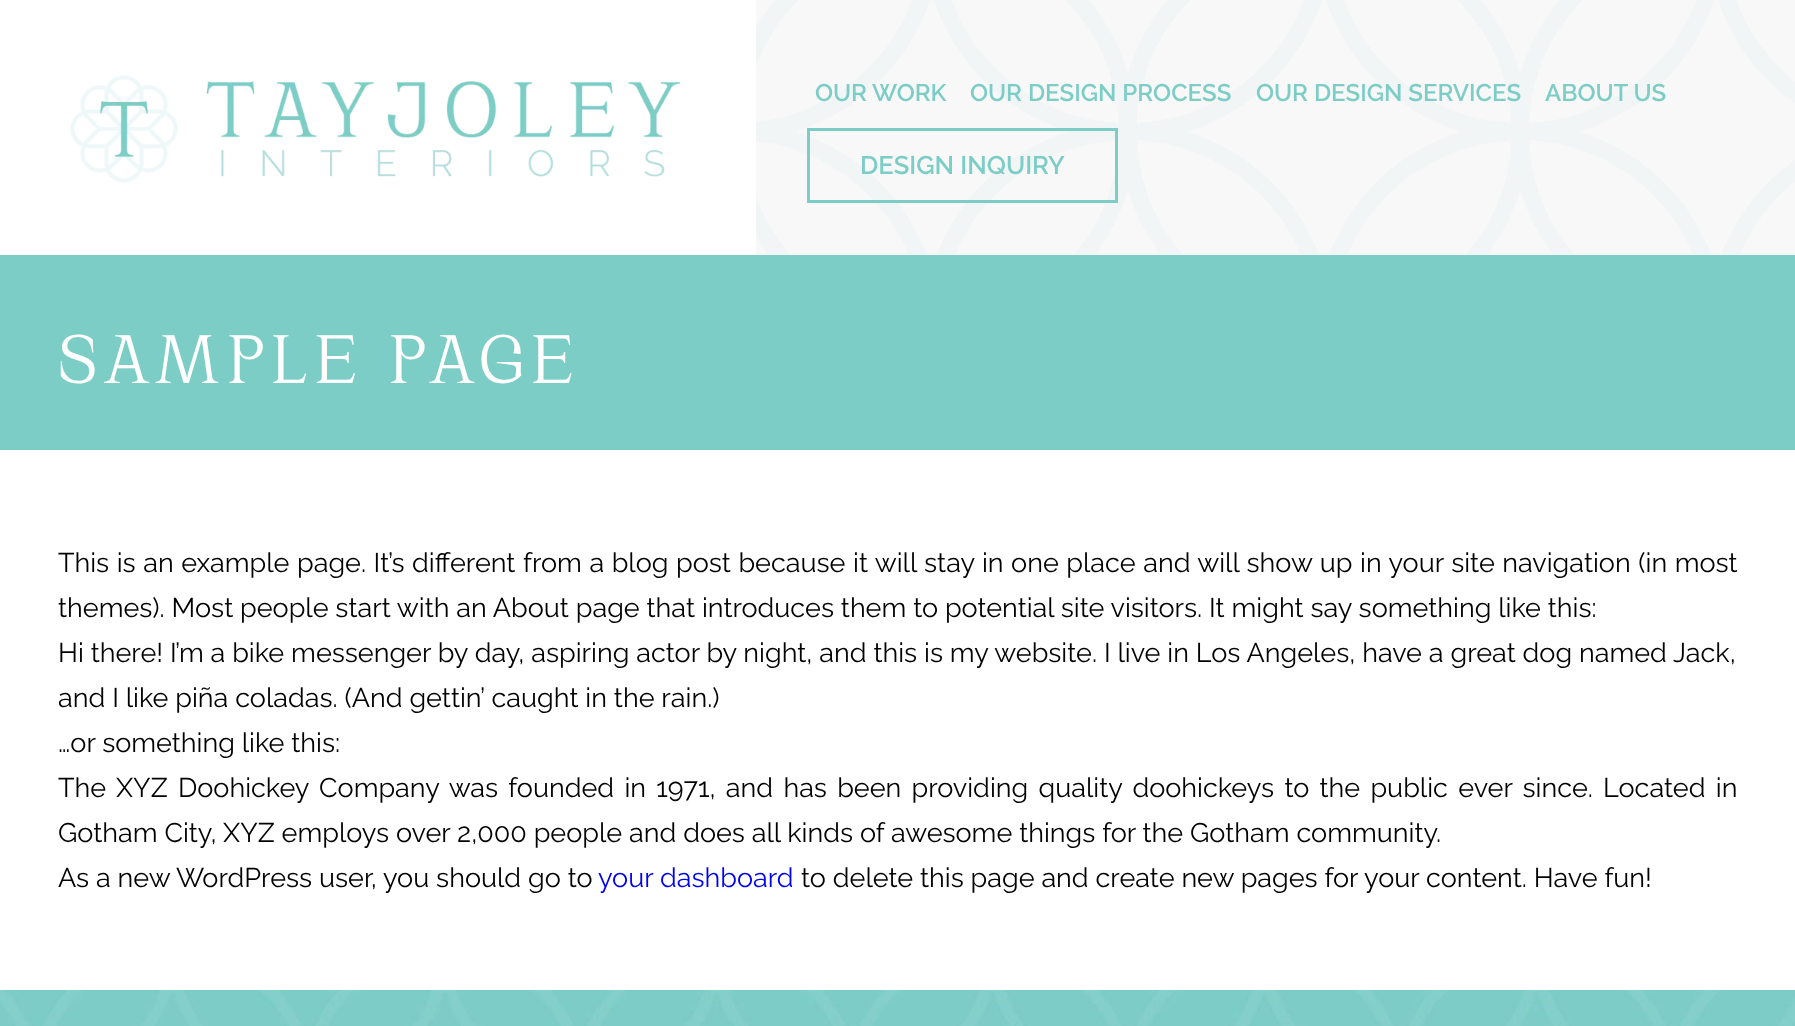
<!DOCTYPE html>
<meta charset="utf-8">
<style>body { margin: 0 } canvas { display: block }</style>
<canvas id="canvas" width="1795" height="1026"></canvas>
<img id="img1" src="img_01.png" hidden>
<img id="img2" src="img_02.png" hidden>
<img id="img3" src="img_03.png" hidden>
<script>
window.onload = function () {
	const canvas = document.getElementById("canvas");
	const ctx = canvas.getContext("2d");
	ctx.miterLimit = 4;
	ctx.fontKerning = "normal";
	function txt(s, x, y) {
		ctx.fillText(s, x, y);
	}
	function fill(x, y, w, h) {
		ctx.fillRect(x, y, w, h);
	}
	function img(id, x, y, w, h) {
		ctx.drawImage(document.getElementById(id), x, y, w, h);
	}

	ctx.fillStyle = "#FFFFFF";
	fill(0, 0, 1795, 1026);
	img("img1", 70, 75, 611, 108);
	img("img2", 756, 0, 1039, 255);
	ctx.strokeStyle = "#7DCDC7";
	ctx.lineWidth = 3;
	ctx.strokeRect(808.5, 129.5, 308, 72);
	ctx.fillStyle = "#7DCDC7";
	fill(0, 255, 1795, 195);
	img("img3", 0, 990, 1795, 36);
	ctx.font = "600 24px Raleway";
	txt("OUR WORK", 815, 101);
	txt("OUR DESIGN PROCESS", 970, 101);
	txt("OUR DESIGN SERVICES", 1256, 101);
	txt("ABOUT US", 1545, 101);
	ctx.font = "600 25.5px Raleway";
	txt("DESIGN INQUIRY", 860, 174);
	ctx.letterSpacing = "7.5px";
	ctx.font = "75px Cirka";
	ctx.fillStyle = "#FFFFFF";
	txt("SAMPLE PAGE", 58, 383);
	ctx.letterSpacing = "0px";
	ctx.wordSpacing = "0.7px";
	ctx.font = "27px Raleway";
	ctx.fillStyle = "#000000";
	txt("This is an example page. It’s different from a blog post because it will stay in one place and will show up in your site navigation (in most", 58, 572);
	ctx.wordSpacing = "0px";
	txt("themes). Most people start with an About page that introduces them to potential site visitors. It might say something like this:", 58, 617);
	txt("Hi there! I’m a bike messenger by day, aspiring actor by night, and this is my website. I live in Los Angeles, have a great dog named Jack,", 58, 662);
	txt("and I like piña coladas. (And gettin’ caught in the rain.)", 58, 707);
	txt("…or something like this:", 58, 752);
	ctx.wordSpacing = "3.4px";
	txt("The XYZ Doohickey Company was founded in 1971, and has been providing quality doohickeys to the public ever since. Located in", 58, 797);
	ctx.wordSpacing = "0px";
	txt("Gotham City, XYZ employs over 2,000 people and does all kinds of awesome things for the Gotham community.", 58, 842);
	txt("As a new WordPress user, you should go to", 58, 887);
	ctx.fillStyle = "#0000EE";
	txt("your dashboard", 598, 887);
	ctx.fillStyle = "#000000";
	txt("to delete this page and create new pages for your content. Have fun!", 801, 887);
};
</script>
